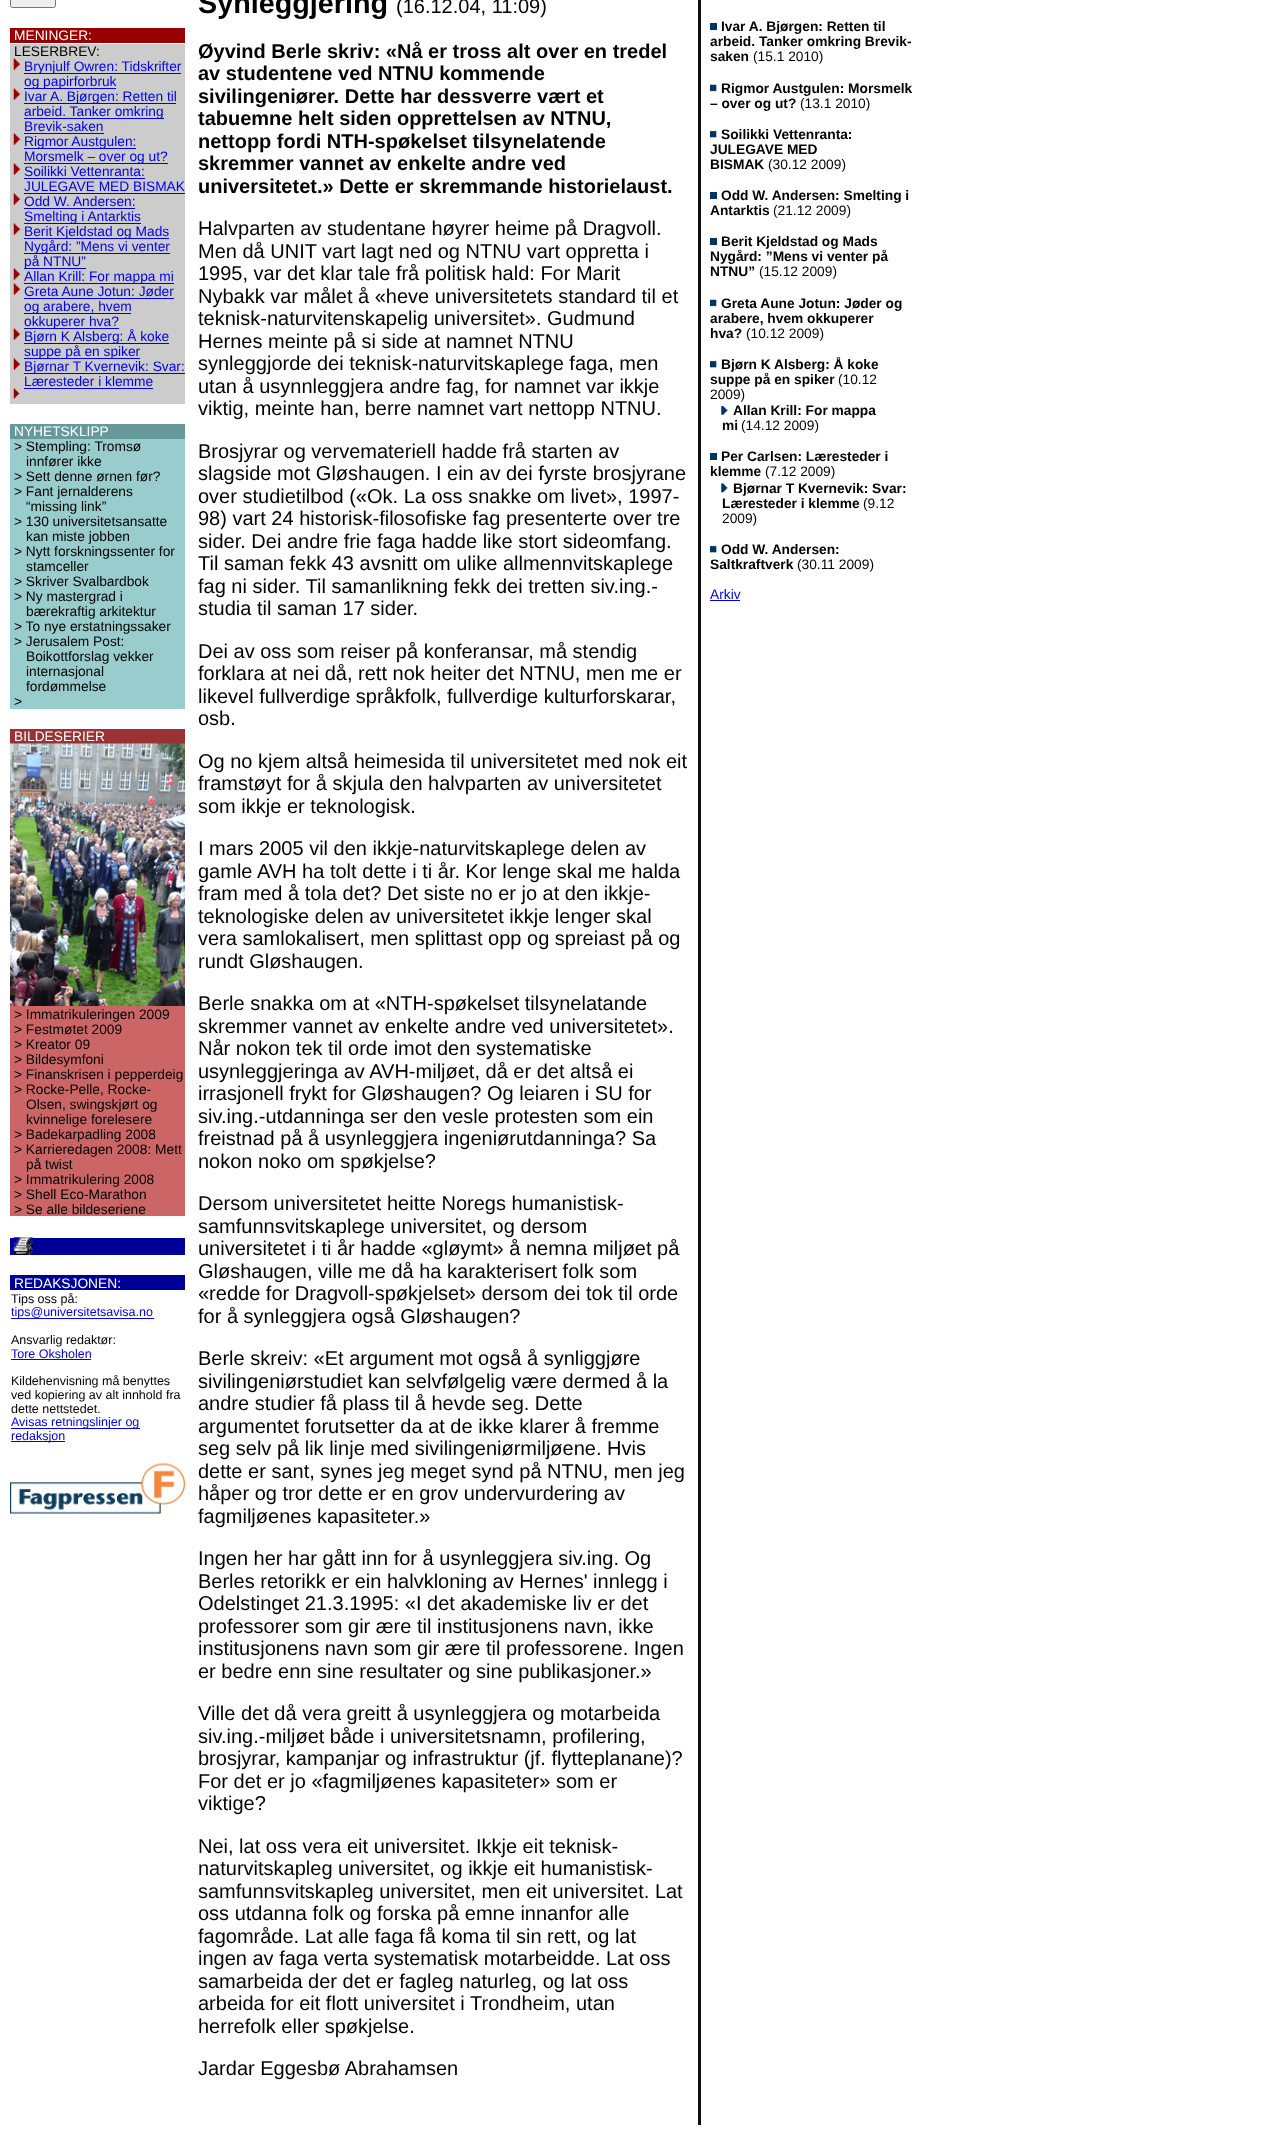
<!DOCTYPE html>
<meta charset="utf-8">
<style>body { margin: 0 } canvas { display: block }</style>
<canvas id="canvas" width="1274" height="2135"></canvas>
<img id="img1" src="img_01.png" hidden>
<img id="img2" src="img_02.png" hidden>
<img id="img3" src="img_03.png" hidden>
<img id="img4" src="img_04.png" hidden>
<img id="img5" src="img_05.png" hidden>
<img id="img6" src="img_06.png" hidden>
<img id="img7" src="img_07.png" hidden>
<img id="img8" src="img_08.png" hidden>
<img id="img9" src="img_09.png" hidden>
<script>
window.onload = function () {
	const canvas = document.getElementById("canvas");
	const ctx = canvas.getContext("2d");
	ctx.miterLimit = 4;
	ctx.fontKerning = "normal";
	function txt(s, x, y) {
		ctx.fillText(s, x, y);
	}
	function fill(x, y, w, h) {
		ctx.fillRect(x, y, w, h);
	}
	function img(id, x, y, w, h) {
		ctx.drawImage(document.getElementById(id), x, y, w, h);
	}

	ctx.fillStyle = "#FFFFFF";
	fill(0, 0, 1274, 2135);
	ctx.fillStyle = "#EFEFEF";
	ctx.beginPath();
	ctx.roundRect(10.5, -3.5, 45, 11, 2);
	ctx.fill();
	ctx.strokeStyle = "#767676";
	ctx.stroke();
	ctx.fillStyle = "#990000";
	fill(10, 28, 175, 15);
	ctx.fillStyle = "#CCCCCC";
	fill(10, 44, 175, 360);
	img("img1", 13, 58, 8, 12);
	ctx.fillStyle = "#0000EE";
	fill(24, 73, 157, 1);
	fill(24, 88, 92, 1);
	img("img1", 13, 88, 8, 12);
	fill(24, 103, 152, 1);
	fill(24, 118, 140, 1);
	fill(24, 133, 80, 1);
	img("img1", 13, 133, 8, 12);
	fill(24, 148, 112, 1);
	fill(24, 163, 144, 1);
	img("img1", 13, 163, 8, 12);
	fill(24, 178, 121, 1);
	fill(24, 193, 161, 1);
	img("img1", 13, 193, 8, 12);
	fill(24, 208, 111, 1);
	fill(24, 223, 117, 1);
	img("img1", 13, 223, 8, 12);
	fill(24, 238, 145, 1);
	fill(24, 253, 146, 1);
	fill(24, 268, 62, 1);
	img("img1", 13, 268, 8, 12);
	fill(24, 283, 150, 1);
	img("img1", 13, 283, 8, 12);
	fill(24, 298, 150, 1);
	fill(24, 313, 107, 1);
	fill(24, 328, 95, 1);
	img("img1", 13, 328, 8, 12);
	fill(24, 343, 145, 1);
	fill(24, 358, 116, 1);
	img("img1", 13, 358, 8, 12);
	fill(24, 373, 161, 1);
	fill(24, 388, 129, 1);
	img("img2", 13, 388, 7, 11);
	ctx.fillStyle = "#669999";
	fill(10, 424, 175, 15);
	ctx.fillStyle = "#99CCCC";
	fill(10, 439, 175, 270);
	ctx.fillStyle = "#993333";
	fill(10, 729, 175, 15);
	img("img3", 10, 743, 175, 263);
	ctx.fillStyle = "#CC6666";
	fill(10, 1006, 175, 210);
	ctx.fillStyle = "#000099";
	fill(10, 1238, 175, 17);
	img("img4", 13, 1237, 20, 18);
	fill(10, 1275, 175, 15);
	ctx.fillStyle = "#0000EE";
	fill(11, 1318, 143, 1);
	fill(11, 1359, 80, 1);
	fill(11, 1428, 129, 1);
	fill(11, 1441, 54, 1);
	img("img5", 10, 1463, 175, 51);
	ctx.fillStyle = "#0F0F0F";
	fill(698, 0, 3, 2125);
	ctx.fillStyle = "#003366";
	fill(710, 23, 7, 7);
	img("img6", 710, 84, 7, 8);
	img("img7", 710, 130, 7, 8);
	fill(710, 192, 7, 7);
	fill(710, 238, 7, 7);
	img("img6", 710, 299, 7, 8);
	img("img7", 710, 360, 7, 8);
	img("img8", 721, 405, 7, 10);
	fill(710, 453, 7, 7);
	img("img9", 721, 483, 7, 10);
	img("img7", 710, 545, 7, 8);
	ctx.fillStyle = "#0000EE";
	fill(710, 600, 30, 1);
	ctx.font = "13.75px Liberation Sans";
	ctx.fillStyle = "#FFFFFF";
	txt("MENINGER:", 14, 40);
	ctx.fillStyle = "#000000";
	txt("LESERBREV:", 14, 56);
	ctx.fillStyle = "#0000EE";
	txt("Brynjulf Owren: Tidskrifter", 24, 71);
	txt("og papirforbruk", 24, 86);
	txt("Ivar A. Bjørgen: Retten til", 24, 101);
	txt("arbeid. Tanker omkring", 24, 116);
	txt("Brevik-saken", 24, 131);
	txt("Rigmor Austgulen:", 24, 146);
	txt("Morsmelk – over og ut?", 24, 161);
	txt("Soilikki Vettenranta:", 24, 176);
	txt("JULEGAVE MED BISMAK", 24, 191);
	txt("Odd W. Andersen:", 24, 206);
	txt("Smelting i Antarktis", 24, 221);
	txt("Berit Kjeldstad og Mads", 24, 236);
	txt("Nygård: ”Mens vi venter", 24, 251);
	txt("på NTNU”", 24, 266);
	txt("Allan Krill: For mappa mi", 24, 281);
	txt("Greta Aune Jotun: Jøder", 24, 296);
	txt("og arabere, hvem", 24, 311);
	txt("okkuperer hva?", 24, 326);
	txt("Bjørn K Alsberg: Å koke", 24, 341);
	txt("suppe på en spiker", 24, 356);
	txt("Bjørnar T Kvernevik: Svar:", 24, 371);
	txt("Læresteder i klemme", 24, 386);
	ctx.fillStyle = "#FFFFFF";
	txt("NYHETSKLIPP", 14, 436);
	ctx.fillStyle = "#000000";
	txt("> Stempling: Tromsø", 14, 451);
	txt("innfører ikke", 26, 466);
	txt("> Sett denne ørnen før?", 14, 481);
	txt("> Fant jernalderens", 14, 496);
	txt("“missing link”", 26, 511);
	txt("> 130 universitetsansatte", 14, 526);
	txt("kan miste jobben", 26, 541);
	txt("> Nytt forskningssenter for", 14, 556);
	txt("stamceller", 26, 571);
	txt("> Skriver Svalbardbok", 14, 586);
	txt("> Ny mastergrad i", 14, 601);
	txt("bærekraftig arkitektur", 26, 616);
	txt("> To nye erstatningssaker", 14, 631);
	txt("> Jerusalem Post:", 14, 646);
	txt("Boikottforslag vekker", 26, 661);
	txt("internasjonal", 26, 676);
	txt("fordømmelse", 26, 691);
	txt(">", 14, 706);
	ctx.fillStyle = "#FFFFFF";
	txt("BILDESERIER", 14, 741);
	ctx.fillStyle = "#000000";
	txt("> Immatrikuleringen 2009", 14, 1019);
	txt("> Festmøtet 2009", 14, 1034);
	txt("> Kreator 09", 14, 1049);
	txt("> Bildesymfoni", 14, 1064);
	txt("> Finanskrisen i pepperdeig", 14, 1079);
	txt("> Rocke-Pelle, Rocke-", 14, 1094);
	txt("Olsen, swingskjørt og", 26, 1109);
	txt("kvinnelige forelesere", 26, 1124);
	txt("> Badekarpadling 2008", 14, 1139);
	txt("> Karrieredagen 2008: Mett", 14, 1154);
	txt("på twist", 26, 1169);
	txt("> Immatrikulering 2008", 14, 1184);
	txt("> Shell Eco-Marathon", 14, 1199);
	txt("> Se alle bildeseriene", 14, 1214);
	ctx.fillStyle = "#FFFFFF";
	txt("REDAKSJONEN:", 14, 1288);
	ctx.font = "12.5px Liberation Sans";
	ctx.fillStyle = "#000000";
	txt("Tips oss på:", 11, 1303);
	ctx.fillStyle = "#0000EE";
	txt("tips@universitetsavisa.no", 11, 1316);
	ctx.fillStyle = "#000000";
	txt("Ansvarlig redaktør:", 11, 1344);
	ctx.fillStyle = "#0000EE";
	txt("Tore Oksholen", 11, 1358);
	ctx.fillStyle = "#000000";
	txt("Kildehenvisning må benyttes", 11, 1385);
	txt("ved kopiering av alt innhold fra", 11, 1399);
	txt("dette nettstedet.", 11, 1413);
	ctx.fillStyle = "#0000EE";
	txt("Avisas retningslinjer og", 11, 1426);
	txt("redaksjon", 11, 1440);
	ctx.font = "bold 28.75px Liberation Sans";
	ctx.fillStyle = "#000000";
	txt("Synleggjering", 198, 13);
	ctx.font = "20px Liberation Sans";
	txt("(16.12.04, 11:09)", 396, 13);
	ctx.font = "bold 20px Liberation Sans";
	txt("Øyvind Berle skriv: «Nå er tross alt over en tredel", 198, 58);
	txt("av studentene ved NTNU kommende", 198, 80);
	txt("sivilingeniører. Dette har dessverre vært et", 198, 103);
	txt("tabuemne helt siden opprettelsen av NTNU,", 198, 125);
	txt("nettopp fordi NTH-spøkelset tilsynelatende", 198, 148);
	txt("skremmer vannet av enkelte andre ved", 198, 170);
	txt("universitetet.» Dette er skremmande historielaust.", 198, 193);
	ctx.font = "20px Liberation Sans";
	txt("Halvparten av studentane høyrer heime på Dragvoll.", 198, 235);
	txt("Men då UNIT vart lagt ned og NTNU vart oppretta i", 198, 258);
	txt("1995, var det klar tale frå politisk hald: For Marit", 198, 280);
	txt("Nybakk var målet å «heve universitetets standard til et", 198, 303);
	txt("teknisk-naturvitenskapelig universitet». Gudmund", 198, 325);
	txt("Hernes meinte på si side at namnet NTNU", 198, 348);
	txt("synleggjorde dei teknisk-naturvitskaplege faga, men", 198, 370);
	txt("utan å usynnleggjera andre fag, for namnet var ikkje", 198, 393);
	txt("viktig, meinte han, berre namnet vart nettopp NTNU.", 198, 415);
	txt("Brosjyrar og vervemateriell hadde frå starten av", 198, 458);
	txt("slagside mot Gløshaugen. I ein av dei fyrste brosjyrane", 198, 480);
	txt("over studietilbod («Ok. La oss snakke om livet», 1997-", 198, 503);
	txt("98) vart 24 historisk-filosofiske fag presenterte over tre", 198, 525);
	txt("sider. Dei andre frie faga hadde like stort sideomfang.", 198, 548);
	txt("Til saman fekk 43 avsnitt om ulike allmennvitskaplege", 198, 570);
	txt("fag ni sider. Til samanlikning fekk dei tretten siv.ing.-", 198, 593);
	txt("studia til saman 17 sider.", 198, 615);
	txt("Dei av oss som reiser på konferansar, må stendig", 198, 658);
	txt("forklara at nei då, rett nok heiter det NTNU, men me er", 198, 680);
	txt("likevel fullverdige språkfolk, fullverdige kulturforskarar,", 198, 703);
	txt("osb.", 198, 725);
	txt("Og no kjem altså heimesida til universitetet med nok eit", 198, 768);
	txt("framstøyt for å skjula den halvparten av universitetet", 198, 790);
	txt("som ikkje er teknologisk.", 198, 813);
	txt("I mars 2005 vil den ikkje-naturvitskaplege delen av", 198, 855);
	txt("gamle AVH ha tolt dette i ti år. Kor lenge skal me halda", 198, 878);
	txt("fram med å tola det? Det siste no er jo at den ikkje-", 198, 900);
	txt("teknologiske delen av universitetet ikkje lenger skal", 198, 923);
	txt("vera samlokalisert, men splittast opp og spreiast på og", 198, 945);
	txt("rundt Gløshaugen.", 198, 968);
	txt("Berle snakka om at «NTH-spøkelset tilsynelatande", 198, 1010);
	txt("skremmer vannet av enkelte andre ved universitetet».", 198, 1033);
	txt("Når nokon tek til orde imot den systematiske", 198, 1055);
	txt("usynleggjeringa av AVH-miljøet, då er det altså ei", 198, 1078);
	txt("irrasjonell frykt for Gløshaugen? Og leiaren i SU for", 198, 1100);
	txt("siv.ing.-utdanninga ser den vesle protesten som ein", 198, 1123);
	txt("freistnad på å usynleggjera ingeniørutdanninga? Sa", 198, 1145);
	txt("nokon noko om spøkjelse?", 198, 1168);
	txt("Dersom universitetet heitte Noregs humanistisk-", 198, 1210);
	txt("samfunnsvitskaplege universitet, og dersom", 198, 1233);
	txt("universitetet i ti år hadde «gløymt» å nemna miljøet på", 198, 1255);
	txt("Gløshaugen, ville me då ha karakterisert folk som", 198, 1278);
	txt("«redde for Dragvoll-spøkjelset» dersom dei tok til orde", 198, 1300);
	txt("for å synleggjera også Gløshaugen?", 198, 1323);
	txt("Berle skreiv: «Et argument mot også å synliggjøre", 198, 1365);
	txt("sivilingeniørstudiet kan selvfølgelig være dermed å la", 198, 1388);
	txt("andre studier få plass til å hevde seg. Dette", 198, 1410);
	txt("argumentet forutsetter da at de ikke klarer å fremme", 198, 1433);
	txt("seg selv på lik linje med sivilingeniørmiljøene. Hvis", 198, 1455);
	txt("dette er sant, synes jeg meget synd på NTNU, men jeg", 198, 1478);
	txt("håper og tror dette er en grov undervurdering av", 198, 1500);
	txt("fagmiljøenes kapasiteter.»", 198, 1523);
	txt("Ingen her har gått inn for å usynleggjera siv.ing. Og", 198, 1565);
	txt("Berles retorikk er ein halvkloning av Hernes' innlegg i", 198, 1588);
	txt("Odelstinget 21.3.1995: «I det akademiske liv er det", 198, 1610);
	txt("professorer som gir ære til institusjonens navn, ikke", 198, 1633);
	txt("institusjonens navn som gir ære til professorene. Ingen", 198, 1655);
	txt("er bedre enn sine resultater og sine publikasjoner.»", 198, 1678);
	txt("Ville det då vera greitt å usynleggjera og motarbeida", 198, 1720);
	txt("siv.ing.-miljøet både i universitetsnamn, profilering,", 198, 1743);
	txt("brosjyrar, kampanjar og infrastruktur (jf. flytteplanane)?", 198, 1765);
	txt("For det er jo «fagmiljøenes kapasiteter» som er", 198, 1788);
	txt("viktige?", 198, 1810);
	txt("Nei, lat oss vera eit universitet. Ikkje eit teknisk-", 198, 1853);
	txt("naturvitskapleg universitet, og ikkje eit humanistisk-", 198, 1875);
	txt("samfunnsvitskapleg universitet, men eit universitet. Lat", 198, 1898);
	txt("oss utdanna folk og forska på emne innanfor alle", 198, 1920);
	txt("fagområde. Lat alle faga få koma til sin rett, og lat", 198, 1943);
	txt("ingen av faga verta systematisk motarbeidde. Lat oss", 198, 1965);
	txt("samarbeida der det er fagleg naturleg, og lat oss", 198, 1988);
	txt("arbeida for eit flott universitet i Trondheim, utan", 198, 2010);
	txt("herrefolk eller spøkjelse.", 198, 2033);
	txt("Jardar Eggesbø Abrahamsen", 198, 2075);
	ctx.font = "bold 13.75px Liberation Sans";
	txt("Ivar A. Bjørgen: Retten til", 721, 31);
	txt("arbeid. Tanker omkring Brevik-", 710, 46);
	txt("saken", 710, 61);
	ctx.font = "13.75px Liberation Sans";
	txt("(15.1 2010)", 753, 61);
	ctx.font = "bold 13.75px Liberation Sans";
	txt("Rigmor Austgulen: Morsmelk", 721, 93);
	txt("– over og ut?", 710, 108);
	ctx.font = "13.75px Liberation Sans";
	txt("(13.1 2010)", 800, 108);
	ctx.font = "bold 13.75px Liberation Sans";
	txt("Soilikki Vettenranta:", 721, 139);
	txt("JULEGAVE MED", 710, 154);
	txt("BISMAK", 710, 169);
	ctx.font = "13.75px Liberation Sans";
	txt("(30.12 2009)", 768, 169);
	ctx.font = "bold 13.75px Liberation Sans";
	txt("Odd W. Andersen: Smelting i", 721, 200);
	txt("Antarktis", 710, 215);
	ctx.font = "13.75px Liberation Sans";
	txt("(21.12 2009)", 773, 215);
	ctx.font = "bold 13.75px Liberation Sans";
	txt("Berit Kjeldstad og Mads", 721, 246);
	txt("Nygård: ”Mens vi venter på", 710, 261);
	txt("NTNU”", 710, 276);
	ctx.font = "13.75px Liberation Sans";
	txt("(15.12 2009)", 759, 276);
	ctx.font = "bold 13.75px Liberation Sans";
	txt("Greta Aune Jotun: Jøder og", 721, 308);
	txt("arabere, hvem okkuperer", 710, 323);
	txt("hva?", 710, 338);
	ctx.font = "13.75px Liberation Sans";
	txt("(10.12 2009)", 746, 338);
	ctx.font = "bold 13.75px Liberation Sans";
	txt("Bjørn K Alsberg: Å koke", 721, 369);
	txt("suppe på en spiker", 710, 384);
	ctx.font = "13.75px Liberation Sans";
	txt("(10.12", 838, 384);
	txt("2009)", 710, 399);
	ctx.font = "bold 13.75px Liberation Sans";
	txt("Allan Krill: For mappa", 733, 415);
	txt("mi", 722, 430);
	ctx.font = "13.75px Liberation Sans";
	txt("(14.12 2009)", 741, 430);
	ctx.font = "bold 13.75px Liberation Sans";
	txt("Per Carlsen: Læresteder i", 721, 461);
	txt("klemme", 710, 476);
	ctx.font = "13.75px Liberation Sans";
	txt("(7.12 2009)", 765, 476);
	ctx.font = "bold 13.75px Liberation Sans";
	txt("Bjørnar T Kvernevik: Svar:", 733, 493);
	txt("Læresteder i klemme", 722, 508);
	ctx.font = "13.75px Liberation Sans";
	txt("(9.12", 863, 508);
	txt("2009)", 722, 523);
	ctx.font = "bold 13.75px Liberation Sans";
	txt("Odd W. Andersen:", 721, 554);
	txt("Saltkraftverk", 710, 569);
	ctx.font = "13.75px Liberation Sans";
	txt("(30.11 2009)", 797, 569);
	ctx.fillStyle = "#0000EE";
	txt("Arkiv", 710, 599);
};
</script>
